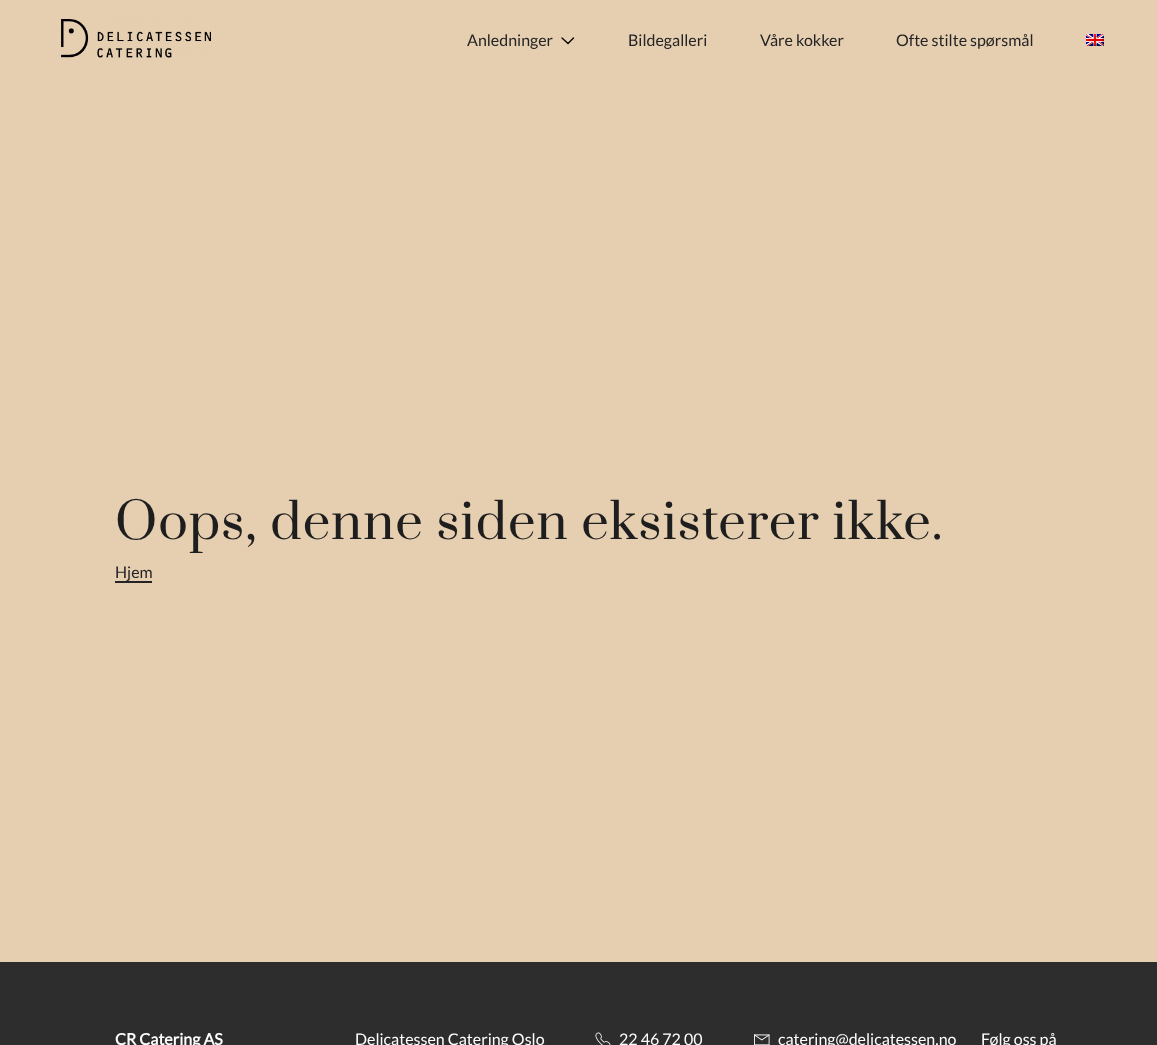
<!DOCTYPE html>
<meta charset="utf-8">
<style>body { margin: 0 } canvas { display: block }</style>
<canvas id="canvas" width="1157" height="1045"></canvas>
<img id="img1" src="img_01.png" hidden>
<img id="img2" src="img_02.png" hidden>
<img id="img3" src="img_03.png" hidden>
<img id="img4" src="img_04.png" hidden>
<script>
window.onload = function () {
	const canvas = document.getElementById("canvas");
	const ctx = canvas.getContext("2d");
	ctx.miterLimit = 4;
	ctx.fontKerning = "normal";
	function txt(s, x, y) {
		ctx.fillText(s, x, y);
	}
	function fill(x, y, w, h) {
		ctx.fillRect(x, y, w, h);
	}
	function img(id, x, y, w, h) {
		ctx.drawImage(document.getElementById(id), x, y, w, h);
	}

	ctx.fillStyle = "#E6CFB1";
	fill(0, 0, 1157, 1045);
	img("img1", 61, 19, 150, 39);
	ctx.beginPath();
	ctx.moveTo(568, 43.5);
	ctx.lineTo(562, 38);
	ctx.moveTo(573.5, 38);
	ctx.lineTo(568, 43.5);
	ctx.strokeStyle = "#000000";
	ctx.lineWidth = 1.3;
	ctx.lineCap = "round";
	ctx.lineJoin = "round";
	ctx.stroke();
	img("img2", 1086, 34, 18, 12);
	ctx.fillStyle = "#242424";
	fill(115, 581, 37, 2);
	ctx.fillStyle = "#2D2D2D";
	fill(0, 962, 1157, 83);
	img("img3", 595, 1032, 16, 13);
	img("img4", 754, 1034, 16, 11);
	ctx.font = "16px Lato";
	ctx.fillStyle = "#242424";
	txt("Anledninger", 467, 46);
	txt("Bildegalleri", 628, 46);
	txt("Våre kokker", 760, 46);
	txt("Ofte stilte spørsmål", 896, 46);
	ctx.letterSpacing = "0.95px";
	ctx.font = "49px Prata";
	ctx.fillStyle = "#1E1E1E";
	txt("Oops, denne siden eksisterer ikke.", 115, 539);
	ctx.letterSpacing = "0px";
	ctx.font = "16px Lato";
	ctx.fillStyle = "#242424";
	txt("Hjem", 115, 578);
	ctx.font = "bold 16px Lato";
	ctx.fillStyle = "#FFFFFF";
	txt("CR Catering AS", 115, 1045);
	ctx.font = "16px Lato";
	txt("Delicatessen Catering Oslo", 355, 1045);
	txt("22 46 72 00", 619, 1045);
	txt("catering@delicatessen.no", 778, 1045);
	txt("Følg oss på", 981, 1045);
};
</script>
